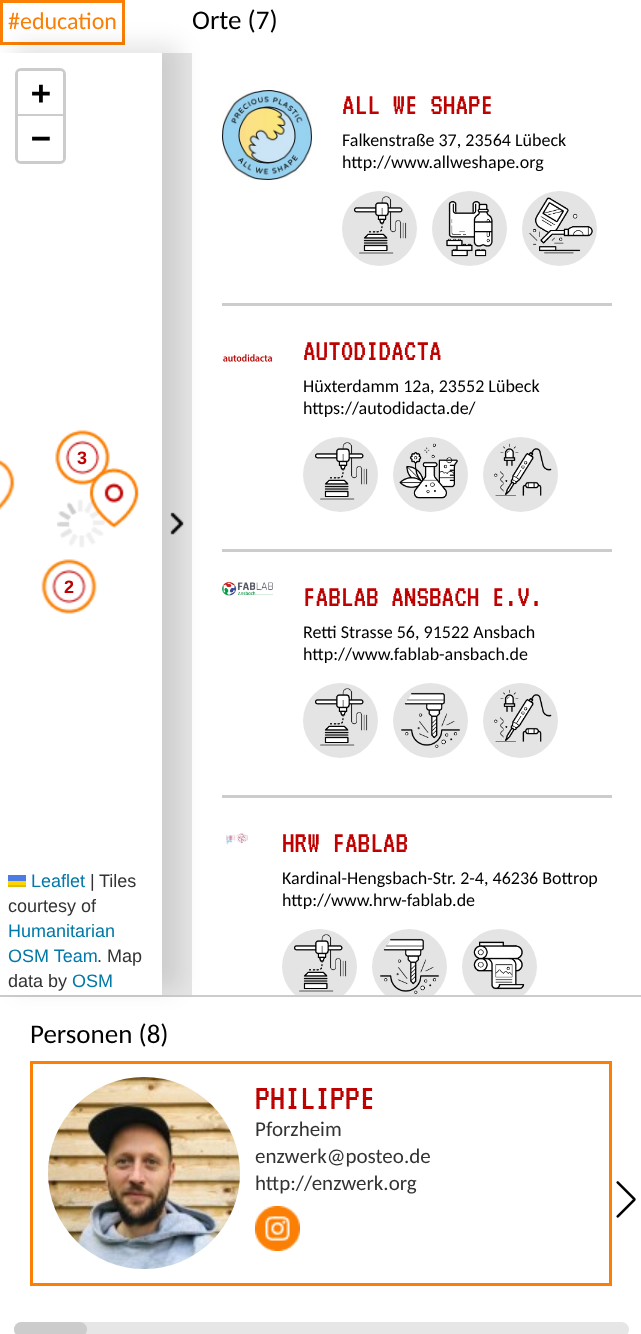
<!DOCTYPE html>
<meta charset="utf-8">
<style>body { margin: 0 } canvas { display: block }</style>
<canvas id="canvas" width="641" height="1334"></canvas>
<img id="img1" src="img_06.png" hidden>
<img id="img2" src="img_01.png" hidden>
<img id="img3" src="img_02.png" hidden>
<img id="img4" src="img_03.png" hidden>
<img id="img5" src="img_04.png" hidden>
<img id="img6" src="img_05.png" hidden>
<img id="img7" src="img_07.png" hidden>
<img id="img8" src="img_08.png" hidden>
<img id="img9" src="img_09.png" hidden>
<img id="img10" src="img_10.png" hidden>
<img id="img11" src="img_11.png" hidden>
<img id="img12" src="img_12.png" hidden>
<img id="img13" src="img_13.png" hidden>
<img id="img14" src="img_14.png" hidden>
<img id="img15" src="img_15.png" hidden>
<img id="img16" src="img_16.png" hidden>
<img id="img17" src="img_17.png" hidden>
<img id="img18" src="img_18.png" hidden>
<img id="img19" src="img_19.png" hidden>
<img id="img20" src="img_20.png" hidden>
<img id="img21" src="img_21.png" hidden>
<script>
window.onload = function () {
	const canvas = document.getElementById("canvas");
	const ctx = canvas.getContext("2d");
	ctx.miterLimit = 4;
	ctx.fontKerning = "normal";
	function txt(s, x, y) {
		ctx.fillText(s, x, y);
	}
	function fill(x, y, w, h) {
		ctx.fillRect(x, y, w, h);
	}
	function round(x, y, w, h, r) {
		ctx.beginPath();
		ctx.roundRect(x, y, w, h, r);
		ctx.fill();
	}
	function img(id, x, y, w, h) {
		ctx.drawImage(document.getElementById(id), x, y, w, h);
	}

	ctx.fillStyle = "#FFFFFF";
	fill(0, 0, 641, 1334);
	ctx.strokeStyle = "#FB7F05";
	ctx.lineWidth = 3;
	ctx.strokeRect(1.5, 1.5, 122, 42);
	ctx.fillStyle = "#CCCCCC";
	fill(0, 995, 641, 2);
	ctx.fillStyle = "#E5E5E5";
	fill(162, 53, 30, 942);
	img("img1", 170, 512, 14, 23);
	ctx.fillStyle = "rgba(0, 0, 0, 0.1)";
	ctx.filter = "blur(11px)";
	ctx.beginPath();
	ctx.rect(14, 44, 165, 945);
	ctx.fill();
	ctx.filter = "none";
	ctx.fillStyle = "#FFFFFF";
	fill(0, 53, 162, 942);
	img("img2", 57, 499, 48, 49);
	ctx.beginPath();
	ctx.roundRect(16.5, 69.5, 48, 93, 4.5);
	ctx.strokeStyle = "#CCCCCC";
	ctx.stroke();
	ctx.beginPath();
	ctx.roundRect(18, 71, 45, 45, [3, 3, 0, 0]);
	ctx.fill();
	ctx.fillStyle = "#CCCCCC";
	fill(18, 114, 45, 2);
	ctx.fillStyle = "#FFFFFF";
	ctx.beginPath();
	ctx.roundRect(18, 116, 45, 45, [0, 0, 3, 3]);
	ctx.fill();
	ctx.fillStyle = "#4C7BE1";
	fill(8, 875, 18, 6);
	ctx.fillStyle = "#FFD500";
	fill(8, 881, 18, 4);
	ctx.fillStyle = "#E0BC00";
	fill(8, 885, 18, 2);
	img("img3", 0, 459, 15, 52);
	img("img4", 55, 430, 55, 55);
	img("img5", 89, 468, 50, 60);
	img("img6", 41, 559, 56, 55);
	ctx.fillStyle = "#CCCCCC";
	fill(222, 303, 390, 3);
	img("img7", 222, 90, 90, 90);
	ctx.fillStyle = "#E4E4E4";
	ctx.beginPath();
	ctx.arc(379.5, 228.5, 37.5, 0, Math.PI * 2);
	ctx.fill();
	ctx.beginPath();
	ctx.arc(469.5, 228.5, 37.5, 0, Math.PI * 2);
	ctx.fill();
	ctx.beginPath();
	ctx.arc(559.5, 228.5, 37.5, 0, Math.PI * 2);
	ctx.fill();
	img("img8", 354, 196, 53, 58);
	img("img9", 446, 201, 47, 56);
	img("img10", 529, 197, 64, 57);
	ctx.fillStyle = "#CCCCCC";
	fill(222, 549, 390, 3);
	img("img11", 222, 353, 51, 9);
	ctx.fillStyle = "#E4E4E4";
	ctx.beginPath();
	ctx.arc(340.5, 474.5, 37.5, 0, Math.PI * 2);
	ctx.fill();
	ctx.beginPath();
	ctx.arc(430.5, 474.5, 37.5, 0, Math.PI * 2);
	ctx.fill();
	ctx.beginPath();
	ctx.arc(520.5, 474.5, 37.5, 0, Math.PI * 2);
	ctx.fill();
	img("img12", 315, 442, 53, 58);
	img("img13", 399, 443, 59, 56);
	img("img14", 494, 443, 58, 53);
	ctx.fillStyle = "#CCCCCC";
	fill(222, 795, 390, 3);
	img("img15", 222, 582, 51, 14);
	ctx.fillStyle = "#E4E4E4";
	ctx.beginPath();
	ctx.arc(340.5, 720.5, 37.5, 0, Math.PI * 2);
	ctx.fill();
	ctx.beginPath();
	ctx.arc(430.5, 720.5, 37.5, 0, Math.PI * 2);
	ctx.fill();
	ctx.beginPath();
	ctx.arc(520.5, 720.5, 37.5, 0, Math.PI * 2);
	ctx.fill();
	img("img12", 315, 688, 53, 58);
	img("img16", 401, 692, 59, 56);
	img("img14", 494, 689, 58, 53);
	img("img17", 226, 833, 22, 12);
	ctx.save();
	ctx.beginPath();
	ctx.rect(192, 53, 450, 942);
	ctx.clip();
	ctx.beginPath();
	ctx.arc(319.5, 966.5, 37.5, 0, Math.PI * 2);
	ctx.fill();
	ctx.beginPath();
	ctx.arc(409.5, 966.5, 37.5, 0, Math.PI * 2);
	ctx.fill();
	ctx.beginPath();
	ctx.arc(499.5, 966.5, 37.5, 0, Math.PI * 2);
	ctx.fill();
	ctx.restore();
	img("img12", 294, 934, 53, 58);
	img("img16", 380, 938, 59, 56);
	img("img18", 473, 941, 52, 49);
	ctx.strokeStyle = "#FB7F05";
	ctx.strokeRect(31.5, 1062.5, 579, 222);
	img("img19", 48, 1077, 192, 192);
	img("img20", 255, 1206, 45, 45);
	img("img21", 616, 1181, 20, 37);
	ctx.fillStyle = "#E6E6E6";
	round(14, 1322, 615, 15, 7.5);
	ctx.fillStyle = "#CCCCCC";
	round(14, 1322, 73, 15, 7.5);
	ctx.font = "24px Carlito";
	ctx.fillStyle = "#FB7F05";
	txt("#education", 8, 29);
	ctx.font = "27px Carlito";
	ctx.fillStyle = "#000000";
	txt("Orte (7)", 192, 29);
	ctx.font = "bold 33px DejaVu Sans Mono";
	txt("+", 31, 104);
	txt("−", 31, 149);
	ctx.font = "18px Liberation Sans";
	ctx.fillStyle = "#0078A8";
	txt("Leaflet", 31, 887);
	ctx.fillStyle = "#333333";
	txt("|", 90, 887);
	txt("Tiles", 99, 887);
	txt("courtesy of", 8, 912);
	ctx.fillStyle = "#0078A8";
	txt("Humanitarian", 8, 937);
	txt("OSM Team", 8, 962);
	ctx.fillStyle = "#333333";
	txt(". Map", 97, 962);
	txt("data by", 8, 987);
	ctx.fillStyle = "#0078A8";
	txt("OSM", 72, 987);
	ctx.font = "bold 18px Liberation Sans";
	ctx.fillStyle = "#BE0101";
	txt("3", 77, 464);
	txt("2", 64, 593);
	ctx.font = "31.5px 'VT323'";
	txt("ALL WE SHAPE", 342, 114);
	ctx.font = "18px Carlito";
	ctx.fillStyle = "#000000";
	txt("Falkenstraße 37, 23564 Lübeck", 342, 146);
	txt("http://www.allweshape.org", 342, 168);
	ctx.font = "31.5px 'VT323'";
	ctx.fillStyle = "#BE0101";
	txt("AUTODIDACTA", 303, 360);
	ctx.font = "18px Carlito";
	ctx.fillStyle = "#000000";
	txt("Hüxterdamm 12a, 23552 Lübeck", 303, 392);
	txt("https://autodidacta.de/", 303, 414);
	ctx.font = "31.5px 'VT323'";
	ctx.fillStyle = "#BE0101";
	txt("FABLAB ANSBACH E.V.", 303, 606);
	ctx.font = "18px Carlito";
	ctx.fillStyle = "#000000";
	txt("Retti Strasse 56, 91522 Ansbach", 303, 638);
	txt("http://www.fablab-ansbach.de", 303, 660);
	ctx.font = "31.5px 'VT323'";
	ctx.fillStyle = "#BE0101";
	txt("HRW FABLAB", 282, 852);
	ctx.font = "18px Carlito";
	ctx.fillStyle = "#000000";
	txt("Kardinal-Hengsbach-Str. 2-4, 46236 Bottrop", 282, 884);
	txt("http://www.hrw-fablab.de", 282, 906);
	ctx.font = "27px Carlito";
	txt("Personen (8)", 30, 1043);
	ctx.font = "37.5px 'VT323'";
	ctx.fillStyle = "#BE0101";
	txt("PHILIPPE", 255, 1109);
	ctx.font = "21px Carlito";
	ctx.fillStyle = "#333333";
	txt("Pforzheim", 255, 1136);
	txt("enzwerk@posteo.de", 255, 1163);
	txt("http://enzwerk.org", 255, 1190);
};
</script>
